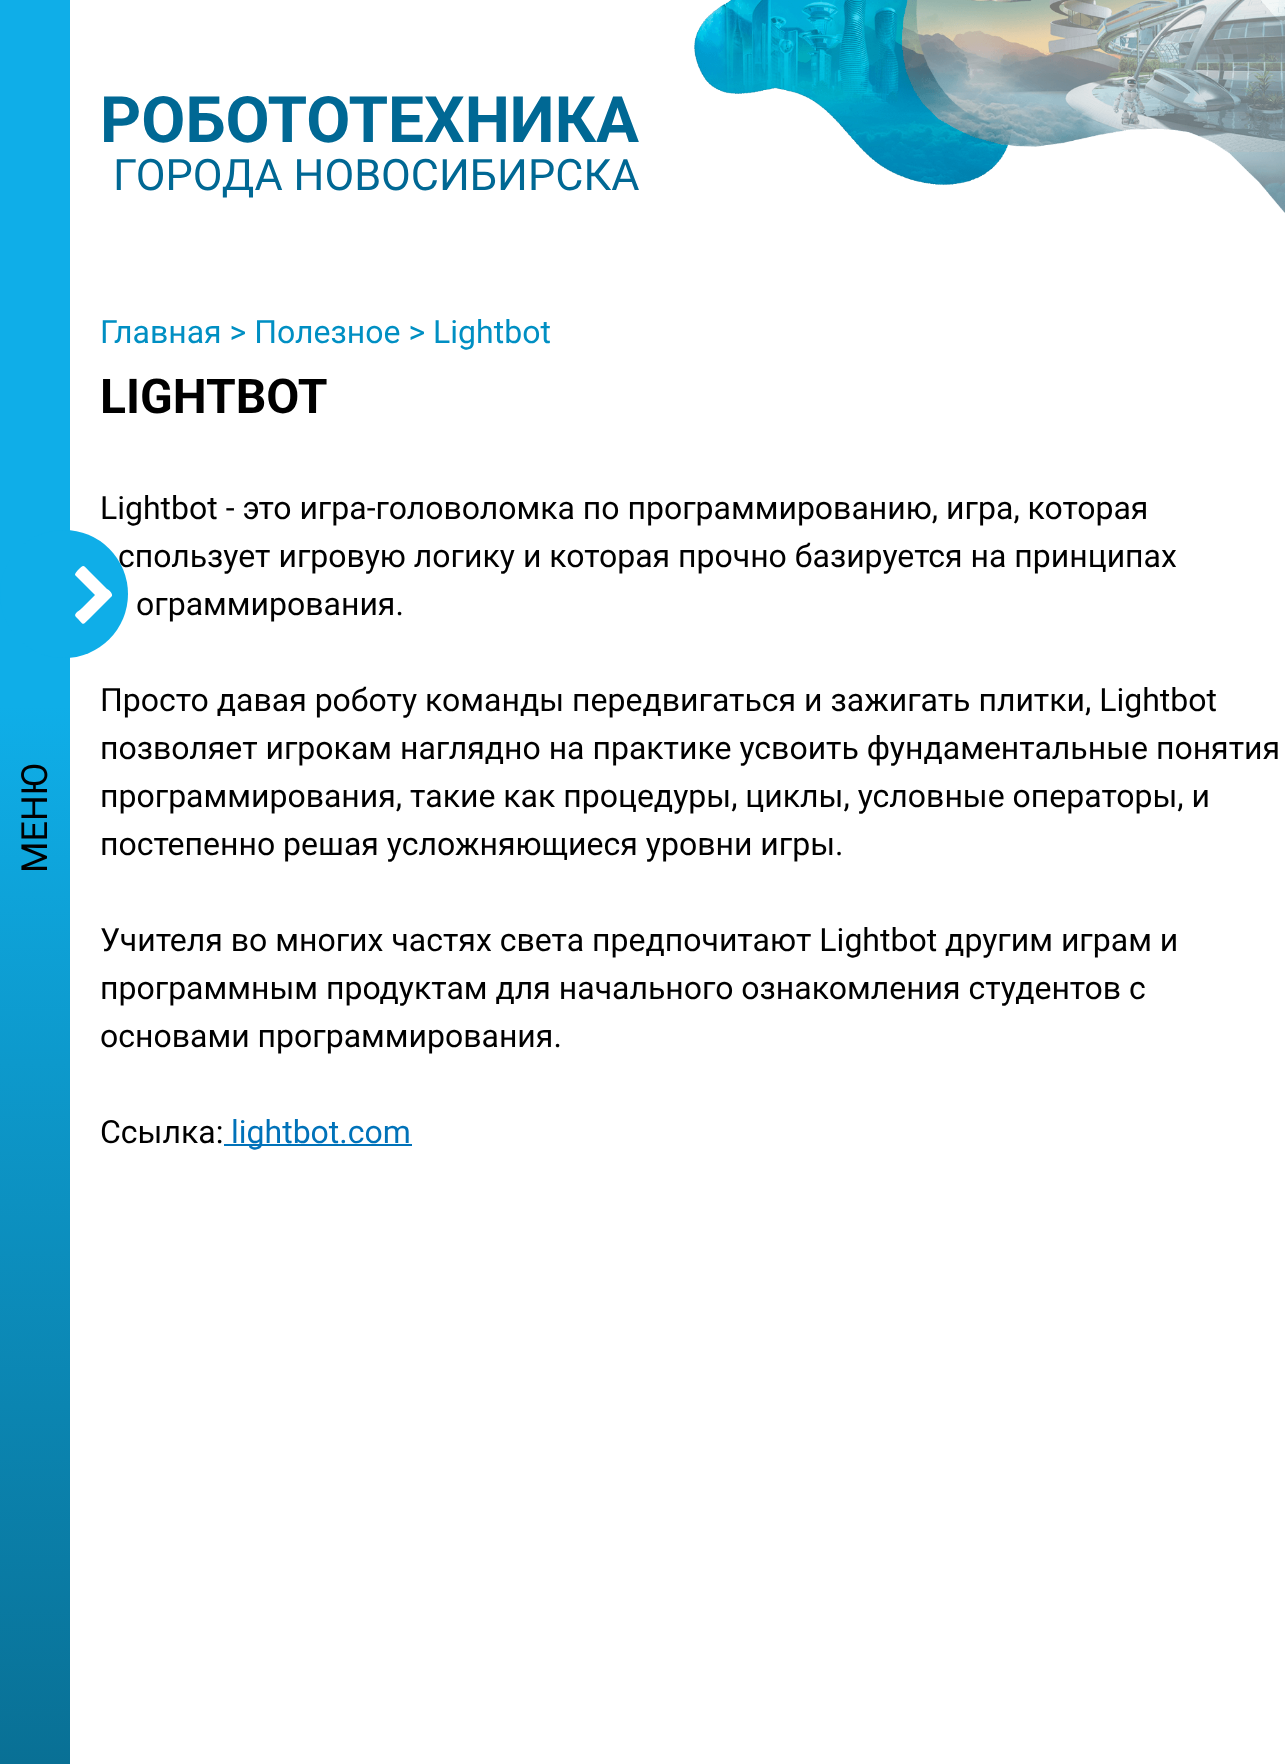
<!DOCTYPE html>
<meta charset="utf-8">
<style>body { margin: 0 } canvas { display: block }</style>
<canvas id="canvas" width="1285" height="1764"></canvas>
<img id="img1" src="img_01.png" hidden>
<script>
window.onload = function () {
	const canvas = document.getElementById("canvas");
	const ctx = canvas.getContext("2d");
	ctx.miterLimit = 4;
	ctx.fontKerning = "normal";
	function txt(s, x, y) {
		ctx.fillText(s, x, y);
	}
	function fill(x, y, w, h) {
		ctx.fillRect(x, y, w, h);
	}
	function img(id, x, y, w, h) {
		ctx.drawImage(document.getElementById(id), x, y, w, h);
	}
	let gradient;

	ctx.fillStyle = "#FFFFFF";
	fill(0, 0, 1285, 1764);
	gradient = ctx.createLinearGradient(35, 0, 35, 1764);
	gradient.addColorStop(0.4, "#0FAEE8");
	gradient.addColorStop(1, "#097095");
	ctx.fillStyle = gradient;
	fill(0, 0, 70, 1764);
	img("img1", 694, 0, 591, 213);
	ctx.fillStyle = "#0072B9";
	fill(224, 1144, 188, 2);
	ctx.font = "36px Roboto";
	ctx.fillStyle = "#000000";
	ctx.save();
	ctx.translate(47, 873);
	ctx.rotate(-90 * Math.PI / 180);
	ctx.fillText("МЕНЮ", 0, 0);
	ctx.restore();
	ctx.font = "bold 64px Roboto";
	ctx.fillStyle = "#006894";
	txt("РОБОТОТЕХНИКА", 100, 142);
	ctx.font = "43.25px Roboto";
	txt("ГОРОДА НОВОСИБИРСКА", 113, 190);
	ctx.font = "32px Roboto";
	ctx.fillStyle = "#008FC3";
	txt("Главная > Полезное > Lightbot", 100, 343);
	ctx.font = "bold 48px Roboto";
	ctx.fillStyle = "#000000";
	txt("LIGHTBOT", 100, 413);
	ctx.font = "32px Roboto";
	txt("Lightbot - это игра-головоломка по программированию, игра, которая", 100, 519);
	txt("спользует игровую логику и которая прочно базируется на принципах", 118, 567);
	ctx.fillStyle = "#0FAEE8";
	ctx.beginPath();
	ctx.arc(64, 594, 64, 0, Math.PI * 2);
	ctx.fill();
	ctx.fillStyle = "#FFFFFF";
	ctx.beginPath();
	ctx.moveTo(112, 596);
	ctx.lineTo(89, 619);
	ctx.bezierCurveTo(82, 626, 84, 625, 77, 618);
	ctx.bezierCurveTo(72, 614, 78, 612, 82, 608);
	ctx.lineTo(95, 595);
	ctx.lineTo(75, 575);
	ctx.bezierCurveTo(75, 573, 77, 571, 78, 570);
	ctx.bezierCurveTo(84, 564, 83, 565, 89, 571);
	ctx.lineTo(107, 589);
	ctx.bezierCurveTo(108, 589, 113, 593, 112, 596);
	ctx.closePath();
	ctx.fill();
	ctx.fillStyle = "#000000";
	txt("ограммирования.", 136, 615);
	txt("Просто давая роботу команды передвигаться и зажигать плитки, Lightbot", 100, 711);
	txt("позволяет игрокам наглядно на практике усвоить фундаментальные понятия", 100, 759);
	txt("программирования, такие как процедуры, циклы, условные операторы, и", 100, 807);
	txt("постепенно решая усложняющиеся уровни игры.", 100, 855);
	txt("Учителя во многих частях света предпочитают Lightbot другим играм и", 100, 951);
	txt("программным продуктам для начального ознакомления студентов с", 100, 999);
	txt("основами программирования.", 100, 1047);
	txt("Ссылка:", 100, 1143);
	ctx.fillStyle = "#0072B9";
	txt("lightbot.com", 231, 1143);
};
</script>
